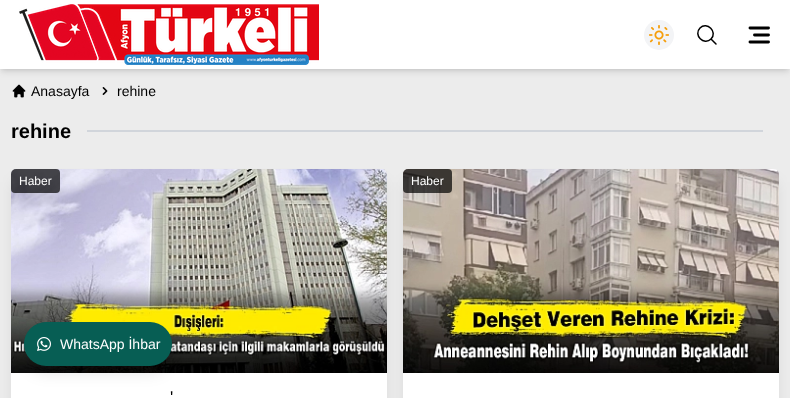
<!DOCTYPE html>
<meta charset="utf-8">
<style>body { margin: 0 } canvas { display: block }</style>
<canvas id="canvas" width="790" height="398"></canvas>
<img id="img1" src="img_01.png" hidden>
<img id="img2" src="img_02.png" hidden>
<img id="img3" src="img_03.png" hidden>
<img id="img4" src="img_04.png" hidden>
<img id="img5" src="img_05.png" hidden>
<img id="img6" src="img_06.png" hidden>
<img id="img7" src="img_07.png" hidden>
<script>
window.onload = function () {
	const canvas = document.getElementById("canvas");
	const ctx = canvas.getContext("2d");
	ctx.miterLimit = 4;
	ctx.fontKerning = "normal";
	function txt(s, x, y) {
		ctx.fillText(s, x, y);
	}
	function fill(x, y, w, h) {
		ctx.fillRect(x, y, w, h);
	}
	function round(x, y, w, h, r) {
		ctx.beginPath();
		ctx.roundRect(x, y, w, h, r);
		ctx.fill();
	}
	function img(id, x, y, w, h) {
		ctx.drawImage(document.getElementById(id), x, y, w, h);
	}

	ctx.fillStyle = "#ECECEC";
	fill(0, 0, 790, 398);
	ctx.fillStyle = "rgba(0, 0, 0, 0.1)";
	ctx.filter = "blur(2px)";
	ctx.beginPath();
	ctx.rect(2, 4, 786, 65);
	ctx.fill();
	ctx.filter = "none";
	ctx.filter = "blur(3px)";
	ctx.beginPath();
	ctx.rect(1, 5, 788, 67);
	ctx.fill();
	ctx.filter = "none";
	ctx.fillStyle = "#FFFFFF";
	fill(0, 0, 790, 69);
	img("img1", 19, 4, 300, 61);
	ctx.fillStyle = "#F3F4F6";
	ctx.beginPath();
	ctx.arc(659, 35, 15, 0, Math.PI * 2);
	ctx.fill();
	img("img2", 649, 25, 20, 20);
	ctx.beginPath();
	ctx.moveTo(716, 44);
	ctx.lineTo(711, 39);
	ctx.moveTo(711, 39);
	ctx.bezierCurveTo(718, 32, 707, 21, 700, 28);
	ctx.bezierCurveTo(693, 35, 704, 46, 711, 39);
	ctx.closePath();
	ctx.strokeStyle = "#000000";
	ctx.lineWidth = 1.5;
	ctx.lineCap = "round";
	ctx.lineJoin = "round";
	ctx.stroke();
	ctx.beginPath();
	ctx.moveTo(768.5, 28);
	ctx.lineTo(750, 28);
	ctx.moveTo(768.5, 35);
	ctx.lineTo(754.5, 35);
	ctx.moveTo(768.5, 42);
	ctx.lineTo(750, 42);
	ctx.lineWidth = 2.9;
	ctx.stroke();
	img("img3", 12, 84, 14, 14);
	img("img4", 102, 87, 6, 8);
	ctx.fillStyle = "#D1D5DB";
	fill(87, 130, 676, 2);
	ctx.fillStyle = "rgba(0, 0, 0, 0.1)";
	ctx.filter = "blur(7.5px)";
	ctx.beginPath();
	ctx.roundRect(14, 182, 370, 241, 2);
	ctx.fill();
	ctx.filter = "none";
	ctx.filter = "blur(7.5px)";
	ctx.beginPath();
	ctx.roundRect(406, 182, 370, 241, 2);
	ctx.fill();
	ctx.filter = "none";
	img("img5", 11, 169, 376, 204);
	ctx.fillStyle = "rgba(0, 0, 0, 0.7)";
	ctx.beginPath();
	ctx.roundRect(11, 169, 49, 24, [5, 4, 4, 4]);
	ctx.fill();
	ctx.fillStyle = "#FFFFFF";
	fill(11, 373, 376, 25);
	img("img6", 403, 169, 376, 204);
	ctx.fillStyle = "rgba(0, 0, 0, 0.7)";
	ctx.beginPath();
	ctx.roundRect(403, 169, 49, 24, [5, 4, 4, 4]);
	ctx.fill();
	ctx.fillStyle = "#FFFFFF";
	fill(403, 373, 376, 25);
	ctx.fillStyle = "rgba(0, 0, 0, 0.1)";
	ctx.filter = "blur(3px)";
	ctx.beginPath();
	ctx.roundRect(28, 330, 140, 36, 18);
	ctx.fill();
	ctx.filter = "none";
	ctx.filter = "blur(7.5px)";
	ctx.beginPath();
	ctx.roundRect(27, 335, 142, 38, 19);
	ctx.fill();
	ctx.filter = "none";
	ctx.fillStyle = "#075E54";
	round(24, 322, 148, 44, 22);
	img("img7", 37, 337, 14, 14);
	ctx.font = "14px Liberation Sans";
	ctx.fillStyle = "#000000";
	txt("Anasayfa", 31, 96);
	txt("rehine", 117, 96);
	ctx.font = "bold 20px Liberation Sans";
	txt("rehine", 11, 138);
	ctx.font = "12px Liberation Sans";
	ctx.fillStyle = "#FFFFFF";
	txt("Haber", 19, 185);
	ctx.font = "17px Liberation Sans";
	ctx.fillStyle = "#000000";
	txt("'", 170, 403);
	ctx.font = "12px Liberation Sans";
	ctx.fillStyle = "#FFFFFF";
	txt("Haber", 411, 185);
	ctx.font = "14px Liberation Sans";
	txt("WhatsApp İhbar", 60, 349);
};
</script>
